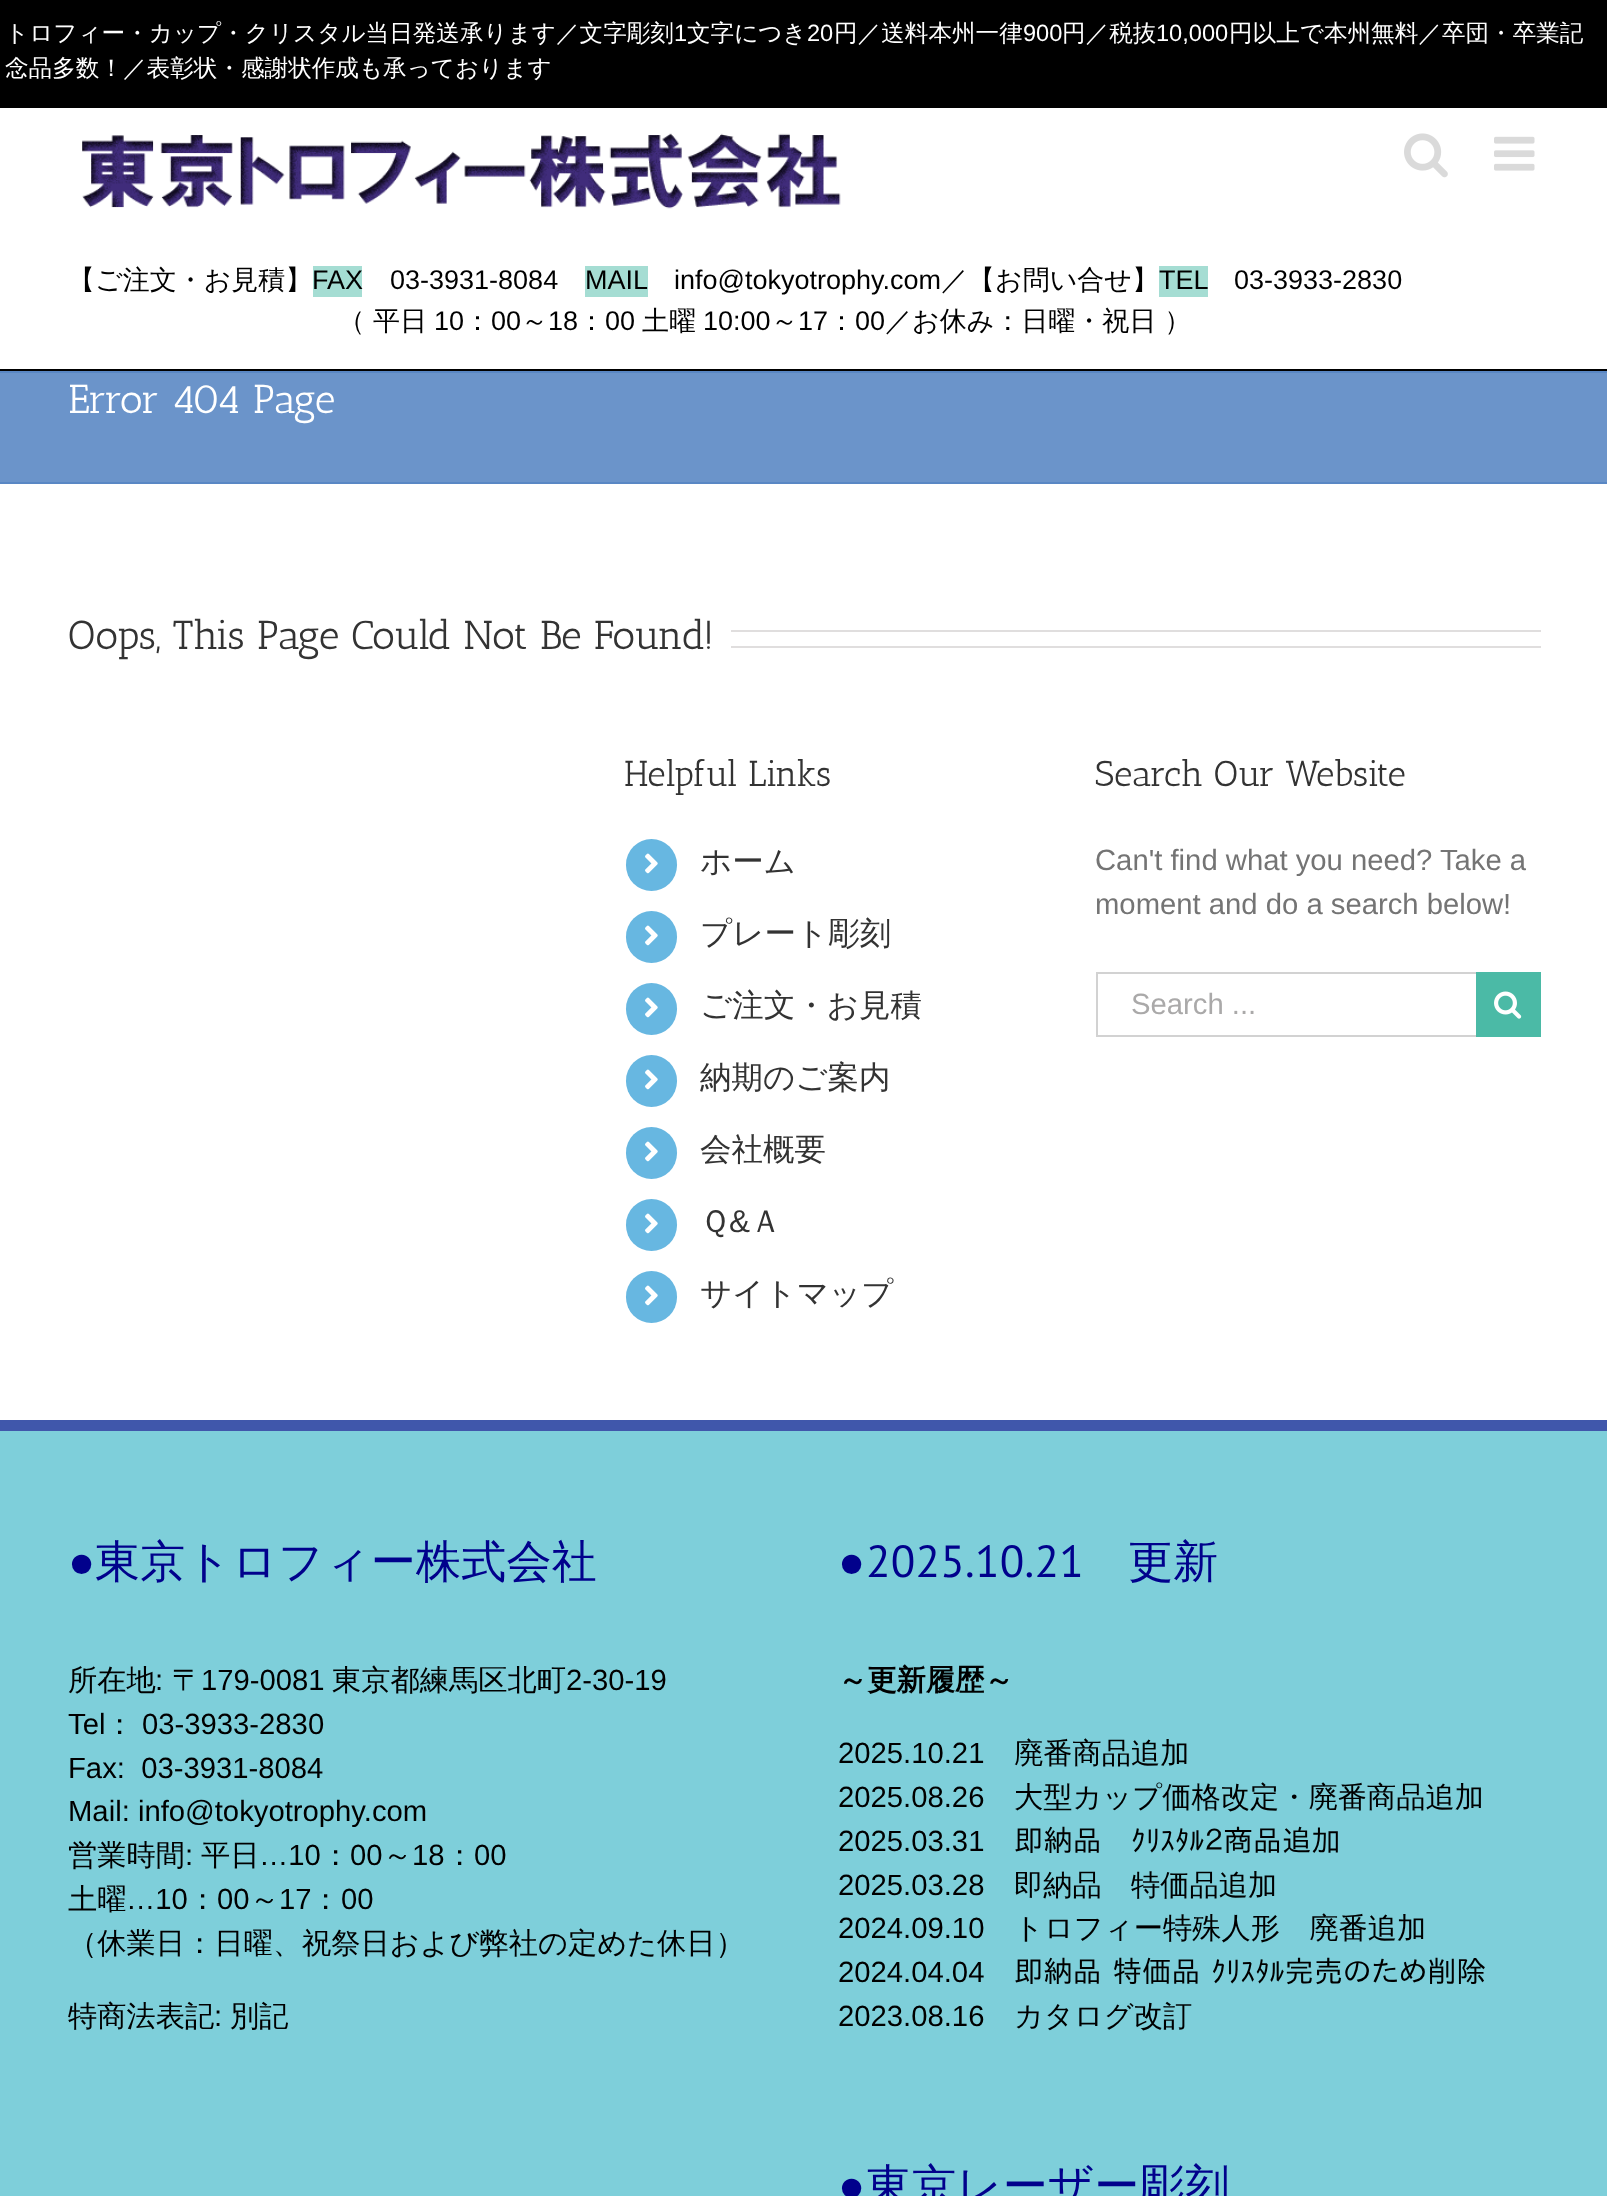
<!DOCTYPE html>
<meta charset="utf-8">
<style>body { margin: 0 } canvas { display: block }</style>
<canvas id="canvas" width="1607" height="2196"></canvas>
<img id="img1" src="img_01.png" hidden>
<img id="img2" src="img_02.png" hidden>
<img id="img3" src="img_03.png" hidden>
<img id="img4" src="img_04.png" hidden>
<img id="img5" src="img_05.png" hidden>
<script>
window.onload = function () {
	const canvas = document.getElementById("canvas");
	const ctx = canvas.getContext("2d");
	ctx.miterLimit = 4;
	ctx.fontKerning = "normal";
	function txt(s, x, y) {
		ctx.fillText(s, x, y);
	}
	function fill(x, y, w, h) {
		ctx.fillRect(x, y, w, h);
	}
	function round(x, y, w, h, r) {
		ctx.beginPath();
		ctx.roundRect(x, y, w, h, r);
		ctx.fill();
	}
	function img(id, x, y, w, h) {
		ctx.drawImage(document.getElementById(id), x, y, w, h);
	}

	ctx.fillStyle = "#FFFFFF";
	fill(0, 0, 1607, 2196);
	ctx.fillStyle = "#000000";
	fill(0, 0, 1607, 108);
	fill(0, 369, 1607, 2);
	img("img1", 1404, 133, 44, 45);
	img("img2", 1494, 136, 41, 35);
	img("img3", 82, 133, 759, 76);
	ctx.fillStyle = "#A5DDD3";
	fill(313, 266, 49, 31);
	fill(585, 266, 63, 31);
	fill(1159, 266, 49, 31);
	ctx.fillStyle = "#6B94CA";
	fill(0, 373, 1607, 109);
	ctx.fillStyle = "#5987C4";
	fill(0, 371, 1607, 2);
	fill(0, 482, 1607, 2);
	ctx.fillStyle = "#E0DEDE";
	fill(731, 630, 810, 2);
	fill(731, 646, 810, 2);
	ctx.fillStyle = "#67B7E1";
	round(626, 839, 51, 52, 25.5);
	img("img4", 645, 853, 13, 21);
	round(626, 911, 51, 52, 25.5);
	img("img4", 645, 925, 13, 21);
	round(626, 983, 51, 52, 25.5);
	img("img4", 645, 997, 13, 21);
	round(626, 1055, 51, 52, 25.5);
	img("img4", 645, 1069, 13, 21);
	round(626, 1127, 51, 52, 25.5);
	img("img4", 645, 1141, 13, 21);
	round(626, 1199, 51, 52, 25.5);
	img("img4", 645, 1213, 13, 21);
	round(626, 1271, 51, 52, 25.5);
	img("img4", 645, 1285, 13, 21);
	ctx.fillStyle = "#D2D2D2";
	fill(1096, 972, 380, 2);
	fill(1096, 1035, 380, 2);
	fill(1096, 972, 2, 65);
	ctx.fillStyle = "#4BBAA6";
	fill(1476, 972, 65, 65);
	img("img5", 1494, 991, 28, 28);
	ctx.fillStyle = "#7ECFDA";
	fill(0, 1431, 1607, 765);
	ctx.fillStyle = "#4057AB";
	fill(0, 1420, 1607, 11);
	ctx.font = "500 23.6px WenQuanYi Zen Hei";
	ctx.fillStyle = "#FFFFFF";
	txt("トロフィー・カップ・クリスタル当日発送承ります／文字彫刻", 5, 41);
	ctx.font = "23.6px Liberation Sans";
	txt("1", 674, 41);
	ctx.font = "500 23.6px WenQuanYi Zen Hei";
	txt("文字につき", 687, 41);
	ctx.font = "23.6px Liberation Sans";
	txt("20", 807, 41);
	ctx.font = "500 23.6px WenQuanYi Zen Hei";
	txt("円／送料本州一律", 834, 41);
	ctx.font = "23.6px Liberation Sans";
	txt("900", 1023, 41);
	ctx.font = "500 23.6px WenQuanYi Zen Hei";
	txt("円／税抜", 1062, 41);
	ctx.font = "23.6px Liberation Sans";
	txt("10,000", 1156, 41);
	ctx.font = "500 23.6px WenQuanYi Zen Hei";
	txt("円以上で本州無料／卒団・卒業記", 1229, 41);
	txt("念品多数！／表彰状・感謝状作成も承っております", 5, 76);
	ctx.font = "500 27px WenQuanYi Zen Hei";
	ctx.fillStyle = "#000000";
	txt("【ご注文・お見積】", 68, 289);
	ctx.font = "27px Liberation Sans";
	txt("FAX", 312, 289);
	txt("03-3931-8084", 390, 289);
	txt("MAIL", 585, 289);
	txt("info@tokyotrophy.com", 674, 289);
	ctx.font = "500 27px WenQuanYi Zen Hei";
	txt("／【お問い合せ】", 941, 289);
	ctx.font = "27px Liberation Sans";
	txt("TEL", 1159, 289);
	txt("03-3933-2830", 1234, 289);
	ctx.font = "500 27px WenQuanYi Zen Hei";
	txt("（ 平日", 338, 330);
	ctx.font = "27px Liberation Sans";
	txt("10", 434, 330);
	ctx.font = "500 27px WenQuanYi Zen Hei";
	txt("：", 464, 330);
	ctx.font = "27px Liberation Sans";
	txt("00", 491, 330);
	ctx.font = "500 27px WenQuanYi Zen Hei";
	txt("～", 521, 330);
	ctx.font = "27px Liberation Sans";
	txt("18", 548, 330);
	ctx.font = "500 27px WenQuanYi Zen Hei";
	txt("：", 578, 330);
	ctx.font = "27px Liberation Sans";
	txt("00", 605, 330);
	ctx.font = "500 27px WenQuanYi Zen Hei";
	txt("土曜", 642, 330);
	ctx.font = "27px Liberation Sans";
	txt("10:00", 703, 330);
	ctx.font = "500 27px WenQuanYi Zen Hei";
	txt("～", 771, 330);
	ctx.font = "27px Liberation Sans";
	txt("17", 798, 330);
	ctx.font = "500 27px WenQuanYi Zen Hei";
	txt("：", 828, 330);
	ctx.font = "27px Liberation Sans";
	txt("00", 855, 330);
	ctx.font = "500 27px WenQuanYi Zen Hei";
	txt("／お休み：日曜・祝日 ）", 885, 330);
	ctx.font = "40.5px Antic Slab";
	ctx.fillStyle = "#FFFFFF";
	txt("Error 404 Page", 68, 413);
	ctx.fillStyle = "#333333";
	txt("Oops, This Page Could Not Be Found!", 68, 649);
	ctx.font = "36px Antic Slab";
	txt("Helpful Links", 624, 786);
	ctx.font = "500 31.5px WenQuanYi Zen Hei";
	txt("ホーム", 700, 872);
	txt("プレート彫刻", 700, 944);
	txt("ご注文・お見積", 700, 1016);
	txt("納期のご案内", 700, 1088);
	txt("会社概要", 700, 1160);
	txt("Ｑ", 700, 1232);
	ctx.font = "31.5px Liberation Sans";
	txt("&", 729, 1232);
	ctx.font = "500 31.5px WenQuanYi Zen Hei";
	txt("Ａ", 750, 1232);
	txt("サイトマップ", 700, 1304);
	ctx.font = "36px Antic Slab";
	txt("Search Our Website", 1095, 786);
	ctx.font = "29.25px Liberation Sans";
	ctx.fillStyle = "#747474";
	txt("Can't find what you need? Take a", 1095, 870);
	txt("moment and do a search below!", 1095, 914);
	ctx.fillStyle = "#AAA9A9";
	txt("Search ...", 1131, 1014);
	ctx.letterSpacing = "0.25px";
	ctx.font = "45px Liberation Serif";
	ctx.fillStyle = "#01018C";
	txt("●", 68, 1577);
	ctx.font = "500 45px WenQuanYi Zen Hei";
	txt("東京トロフィー株式会社", 95, 1577);
	ctx.letterSpacing = "0px";
	ctx.font = "500 29.25px WenQuanYi Zen Hei";
	ctx.fillStyle = "#000000";
	txt("所在地", 68, 1690);
	ctx.font = "29.25px Liberation Sans";
	txt(":", 155, 1690);
	ctx.font = "500 29.25px WenQuanYi Zen Hei";
	txt("〒", 172, 1690);
	ctx.font = "29.25px Liberation Sans";
	txt("179-0081", 201, 1690);
	ctx.font = "500 29.25px WenQuanYi Zen Hei";
	txt("東京都練馬区北町", 332, 1690);
	ctx.font = "29.25px Liberation Sans";
	txt("2-30-19", 566, 1690);
	txt("Tel", 68, 1734);
	ctx.font = "500 29.25px WenQuanYi Zen Hei";
	txt("：", 105, 1734);
	ctx.font = "29.25px Liberation Sans";
	txt("03-3933-2830", 142, 1734);
	txt("Fax:  03-3931-8084", 68, 1778);
	txt("Mail: info@tokyotrophy.com", 68, 1821);
	ctx.font = "500 29.25px WenQuanYi Zen Hei";
	txt("営業時間", 68, 1865);
	ctx.font = "29.25px Liberation Sans";
	txt(":", 185, 1865);
	ctx.font = "500 29.25px WenQuanYi Zen Hei";
	txt("平日", 201, 1865);
	ctx.font = "29.25px Liberation Sans";
	txt("…10", 259, 1865);
	ctx.font = "500 29.25px WenQuanYi Zen Hei";
	txt("：", 321, 1865);
	ctx.font = "29.25px Liberation Sans";
	txt("00", 350, 1865);
	ctx.font = "500 29.25px WenQuanYi Zen Hei";
	txt("～", 383, 1865);
	ctx.font = "29.25px Liberation Sans";
	txt("18", 412, 1865);
	ctx.font = "500 29.25px WenQuanYi Zen Hei";
	txt("：", 445, 1865);
	ctx.font = "29.25px Liberation Sans";
	txt("00", 474, 1865);
	ctx.font = "500 29.25px WenQuanYi Zen Hei";
	txt("土曜", 68, 1909);
	ctx.font = "29.25px Liberation Sans";
	txt("…10", 126, 1909);
	ctx.font = "500 29.25px WenQuanYi Zen Hei";
	txt("：", 188, 1909);
	ctx.font = "29.25px Liberation Sans";
	txt("00", 217, 1909);
	ctx.font = "500 29.25px WenQuanYi Zen Hei";
	txt("～", 250, 1909);
	ctx.font = "29.25px Liberation Sans";
	txt("17", 279, 1909);
	ctx.font = "500 29.25px WenQuanYi Zen Hei";
	txt("：", 311, 1909);
	ctx.font = "29.25px Liberation Sans";
	txt("00", 341, 1909);
	ctx.font = "500 29.25px WenQuanYi Zen Hei";
	txt("（休業日：日曜、祝祭日および弊社の定めた休日）", 68, 1953);
	txt("特商法表記", 68, 2026);
	ctx.font = "29.25px Liberation Sans";
	txt(":", 214, 2026);
	ctx.font = "500 29.25px WenQuanYi Zen Hei";
	txt("別記", 230, 2026);
	ctx.letterSpacing = "0.25px";
	ctx.font = "45px Liberation Serif";
	ctx.fillStyle = "#01018C";
	txt("●", 838, 1577);
	ctx.font = "45px PT Sans";
	txt("2025.10.21", 866, 1577);
	ctx.font = "500 45px WenQuanYi Zen Hei";
	txt("更新", 1128, 1577);
	ctx.letterSpacing = "0px";
	ctx.font = "bold 29.25px WenQuanYi Zen Hei";
	ctx.fillStyle = "#000000";
	txt("～更新履歴～", 838, 1690);
	ctx.font = "29.25px Liberation Sans";
	txt("2025.10.21", 838, 1763);
	ctx.font = "500 29.25px WenQuanYi Zen Hei";
	txt("廃番商品追加", 1014, 1763);
	ctx.font = "29.25px Liberation Sans";
	txt("2025.08.26", 838, 1807);
	ctx.font = "500 29.25px WenQuanYi Zen Hei";
	txt("大型カップ価格改定・廃番商品追加", 1014, 1807);
	ctx.font = "29.25px Liberation Sans";
	txt("2025.03.31", 838, 1851);
	ctx.font = "29.25px IPAPGothic";
	txt("即納品　ｸﾘｽﾀﾙ２商品追加", 1014, 1851);
	ctx.font = "29.25px Liberation Sans";
	txt("2025.03.28", 838, 1895);
	ctx.font = "500 29.25px WenQuanYi Zen Hei";
	txt("即納品　特価品追加", 1014, 1895);
	ctx.font = "29.25px Liberation Sans";
	txt("2024.09.10", 838, 1938);
	ctx.font = "500 29.25px WenQuanYi Zen Hei";
	txt("トロフィー特殊人形　廃番追加", 1014, 1938);
	ctx.font = "29.25px Liberation Sans";
	txt("2024.04.04", 838, 1982);
	ctx.wordSpacing = "3px";
	ctx.font = "29.25px IPAPGothic";
	txt("即納品 特価品 ｸﾘｽﾀﾙ完売のため削除", 1014, 1982);
	ctx.wordSpacing = "0px";
	ctx.font = "29.25px Liberation Sans";
	txt("2023.08.16", 838, 2026);
	ctx.font = "500 29.25px WenQuanYi Zen Hei";
	txt("カタログ改訂", 1014, 2026);
	ctx.letterSpacing = "0.25px";
	ctx.font = "45px Liberation Serif";
	ctx.fillStyle = "#01018C";
	txt("●", 838, 2201);
	ctx.font = "500 45px WenQuanYi Zen Hei";
	txt("東京レーザー彫刻", 866, 2201);
};
</script>
